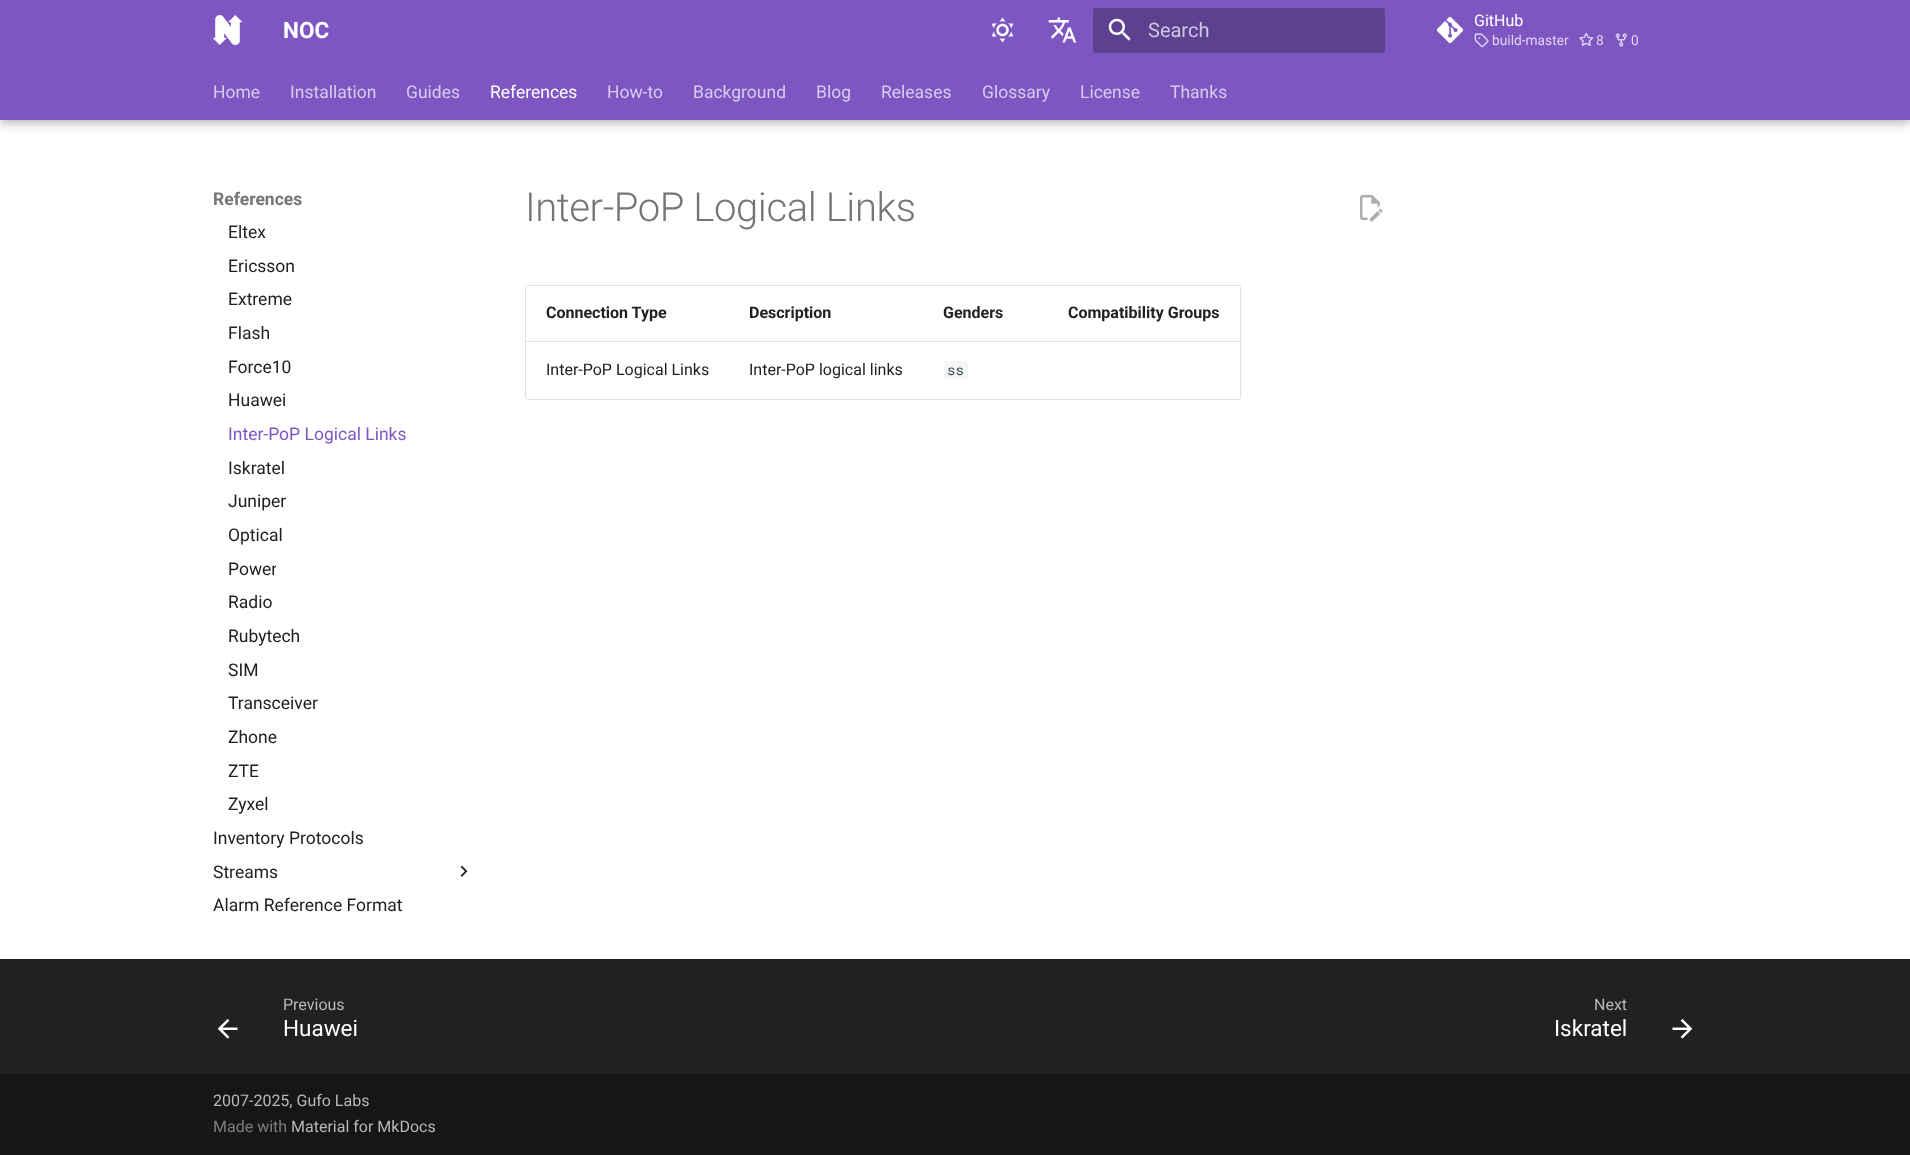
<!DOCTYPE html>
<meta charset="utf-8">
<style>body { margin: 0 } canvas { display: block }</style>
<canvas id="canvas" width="1910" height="1155"></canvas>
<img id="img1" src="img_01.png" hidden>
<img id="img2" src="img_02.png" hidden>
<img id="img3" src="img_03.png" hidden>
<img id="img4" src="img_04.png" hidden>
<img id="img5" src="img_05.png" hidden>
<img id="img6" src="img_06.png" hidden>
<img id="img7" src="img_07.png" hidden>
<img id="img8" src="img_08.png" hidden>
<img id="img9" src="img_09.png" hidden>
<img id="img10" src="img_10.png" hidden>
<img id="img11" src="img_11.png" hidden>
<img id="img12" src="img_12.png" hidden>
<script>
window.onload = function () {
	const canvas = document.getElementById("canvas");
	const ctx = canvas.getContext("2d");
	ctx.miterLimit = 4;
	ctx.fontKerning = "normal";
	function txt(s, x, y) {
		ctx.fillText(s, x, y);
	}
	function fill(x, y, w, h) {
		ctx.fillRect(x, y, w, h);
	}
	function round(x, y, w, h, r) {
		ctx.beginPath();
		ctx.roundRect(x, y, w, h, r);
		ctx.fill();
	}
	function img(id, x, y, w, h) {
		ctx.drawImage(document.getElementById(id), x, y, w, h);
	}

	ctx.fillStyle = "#FFFFFF";
	fill(0, 0, 1910, 1155);
	ctx.fillStyle = "rgba(0, 0, 0, 0.2)";
	ctx.filter = "blur(5px)";
	ctx.beginPath();
	ctx.rect(0, 5, 1910, 120);
	ctx.fill();
	ctx.filter = "none";
	ctx.fillStyle = "rgba(0, 0, 0, 0.1)";
	ctx.filter = "blur(2.5px)";
	ctx.beginPath();
	ctx.rect(0, 0, 1910, 120);
	ctx.fill();
	ctx.filter = "none";
	ctx.fillStyle = "#7E56C2";
	fill(0, 0, 1910, 120);
	img("img1", 213, 15, 30, 30);
	img("img2", 991, 17, 23, 26);
	img("img3", 1048, 17, 29, 26);
	ctx.fillStyle = "#5D4090";
	round(1093, 8, 292, 45, 2.5);
	img("img4", 1108, 18, 23, 23);
	img("img5", 1436, 16, 28, 28);
	img("img6", 1474, 33, 15, 15);
	img("img7", 1579, 33, 15, 13);
	img("img8", 1615, 33, 12, 14);
	ctx.save();
	ctx.beginPath();
	ctx.rect(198, 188, 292, 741);
	ctx.clip();
	ctx.fillStyle = "#FFFFFF";
	ctx.filter = "blur(5px)";
	ctx.beginPath();
	ctx.rect(203, 178, 282, 42);
	ctx.fill();
	ctx.filter = "none";
	ctx.restore();
	img("img9", 460, 865, 8, 12);
	img("img10", 1360, 195, 23, 27);
	ctx.beginPath();
	ctx.roundRect(525.5, 285.5, 715, 114, 2);
	ctx.strokeStyle = "#E0E0E0";
	ctx.stroke();
	ctx.fillStyle = "#E0E0E0";
	fill(526, 341, 714, 1);
	ctx.fillStyle = "#F5F5F5";
	round(944, 361, 24, 18, 2.5);
	ctx.fillStyle = "#212121";
	fill(0, 959, 1910, 115);
	img("img11", 217, 1019, 21, 20);
	img("img12", 1672, 1019, 21, 20);
	ctx.fillStyle = "#161616";
	fill(0, 1074, 1910, 81);
	ctx.font = "bold 22.5px Roboto";
	ctx.fillStyle = "#FFFFFF";
	txt("NOC", 283, 38);
	ctx.font = "20px Roboto";
	ctx.fillStyle = "#CEC6DE";
	txt("Search", 1148, 37);
	ctx.font = "16px Roboto";
	ctx.fillStyle = "#FFFFFF";
	txt("GitHub", 1474, 26);
	ctx.font = "13.75px Roboto";
	ctx.fillStyle = "#DFD5F0";
	txt("build-master", 1492, 45);
	txt("8", 1596, 45);
	txt("0", 1631, 45);
	ctx.font = "17.5px Roboto";
	ctx.fillStyle = "#D8CCED";
	txt("Home", 213, 98);
	txt("Installation", 290, 98);
	txt("Guides", 406, 98);
	ctx.fillStyle = "#FFFFFF";
	txt("References", 490, 98);
	ctx.fillStyle = "#D8CCED";
	txt("How-to", 607, 98);
	txt("Background", 693, 98);
	txt("Blog", 816, 98);
	txt("Releases", 881, 98);
	txt("Glossary", 982, 98);
	txt("License", 1080, 98);
	txt("Thanks", 1170, 98);
	ctx.font = "bold 17.5px Roboto";
	ctx.fillStyle = "#757575";
	txt("References", 213, 205);
	ctx.font = "17.5px Roboto";
	ctx.fillStyle = "#212121";
	txt("Eltex", 228, 238);
	txt("Ericsson", 228, 272);
	txt("Extreme", 228, 305);
	txt("Flash", 228, 339);
	txt("Force10", 228, 373);
	txt("Huawei", 228, 406);
	ctx.fillStyle = "#7E56C2";
	txt("Inter-PoP Logical Links", 228, 440);
	ctx.fillStyle = "#212121";
	txt("Iskratel", 228, 474);
	txt("Juniper", 228, 507);
	txt("Optical", 228, 541);
	ctx.save();
	ctx.beginPath();
	ctx.rect(228, 558, 48, 22);
	ctx.clip();
	txt("Power", 228, 575);
	ctx.restore();
	txt("Radio", 228, 608);
	txt("Rubytech", 228, 642);
	txt("SIM", 228, 676);
	txt("Transceiver", 228, 709);
	txt("Zhone", 228, 743);
	txt("ZTE", 228, 777);
	txt("Zyxel", 228, 810);
	txt("Inventory Protocols", 213, 844);
	txt("Streams", 213, 878);
	txt("Alarm Reference Format", 213, 911);
	ctx.letterSpacing = "-0.4px";
	ctx.font = "300 40px Roboto";
	ctx.fillStyle = "#757575";
	txt("Inter-PoP Logical Links", 525, 221);
	ctx.letterSpacing = "0px";
	ctx.font = "bold 16px Roboto";
	ctx.fillStyle = "#212121";
	txt("Connection Type", 546, 318);
	txt("Description", 749, 318);
	txt("Genders", 943, 318);
	txt("Compatibility Groups", 1068, 318);
	ctx.font = "16px Roboto";
	txt("Inter-PoP Logical Links", 546, 375);
	txt("Inter-PoP logical links", 749, 375);
	ctx.font = "14px Roboto Mono";
	ctx.fillStyle = "#36464E";
	txt("ss", 947, 375);
	ctx.font = "16px Roboto";
	ctx.fillStyle = "#B9B9B9";
	txt("Previous", 283, 1010);
	ctx.font = "22.5px Roboto";
	ctx.fillStyle = "#FFFFFF";
	txt("Huawei", 283, 1036);
	ctx.font = "16px Roboto";
	ctx.fillStyle = "#B9B9B9";
	txt("Next", 1594, 1010);
	ctx.font = "22.5px Roboto";
	ctx.fillStyle = "#FFFFFF";
	txt("Iskratel", 1554, 1036);
	ctx.font = "16px Roboto";
	ctx.fillStyle = "#B9B9B9";
	txt("2007-2025, Gufo Labs", 213, 1106);
	ctx.fillStyle = "#7F7F7F";
	txt("Made with", 213, 1132);
	ctx.fillStyle = "#B9B9B9";
	txt("Material for MkDocs", 291, 1132);
};
</script>
